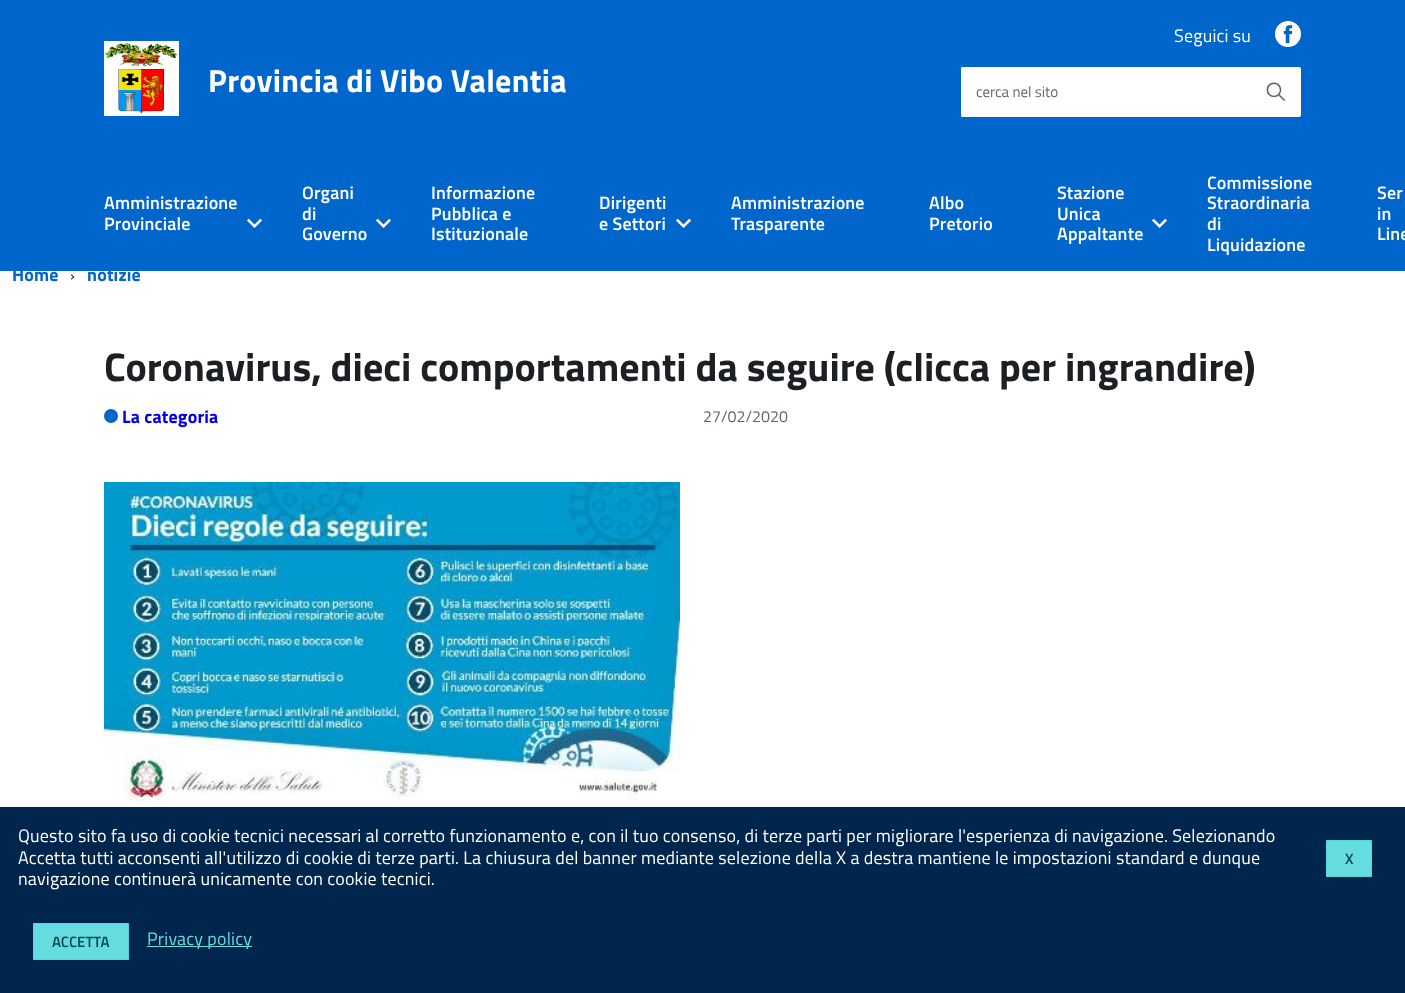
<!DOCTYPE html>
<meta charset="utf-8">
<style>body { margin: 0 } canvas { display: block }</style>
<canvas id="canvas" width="1405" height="993"></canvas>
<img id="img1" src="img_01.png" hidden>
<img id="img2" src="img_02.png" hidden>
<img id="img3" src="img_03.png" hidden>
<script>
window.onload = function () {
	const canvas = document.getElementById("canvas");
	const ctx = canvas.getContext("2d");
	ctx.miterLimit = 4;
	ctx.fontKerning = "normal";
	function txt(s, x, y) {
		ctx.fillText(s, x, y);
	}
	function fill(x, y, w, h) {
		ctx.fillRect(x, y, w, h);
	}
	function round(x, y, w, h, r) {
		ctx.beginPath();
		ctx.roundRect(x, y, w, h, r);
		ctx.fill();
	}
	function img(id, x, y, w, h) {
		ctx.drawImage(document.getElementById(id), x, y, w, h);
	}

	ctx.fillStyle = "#FFFFFF";
	fill(0, 0, 1405, 993);
	ctx.fillStyle = "#0066CC";
	fill(0, 0, 1405, 271);
	img("img1", 104, 41, 75, 75);
	ctx.fillStyle = "#FFFFFF";
	ctx.beginPath();
	ctx.arc(1288, 34, 13, 0, Math.PI * 2);
	ctx.fill();
	img("img2", 1283, 25, 10, 19);
	round(961, 67, 340, 50, 2);
	round(961, 67, 290, 50, 2);
	ctx.fillStyle = "#0066CC";
	ctx.beginPath();
	ctx.arc(111, 416, 7, 0, Math.PI * 2);
	ctx.fill();
	img("img3", 104, 482, 576, 325);
	ctx.fillStyle = "#00264D";
	fill(0, 807, 1405, 186);
	ctx.fillStyle = "#65DDE0";
	ctx.beginPath();
	ctx.rect(1326.5, 840.5, 45, 36);
	ctx.fill();
	ctx.strokeStyle = "#50D8DC";
	ctx.stroke();
	ctx.beginPath();
	ctx.rect(33.5, 923.5, 95, 36);
	ctx.fill();
	ctx.stroke();
	ctx.fillStyle = "#65DCDF";
	fill(147, 946, 105, 1);
	ctx.letterSpacing = "0.3px";
	ctx.font = "bold 32px Titillium Web";
	ctx.fillStyle = "#FFFFFF";
	txt("Provincia di Vibo Valentia", 208, 92);
	ctx.letterSpacing = "0.18px";
	ctx.font = "18px Titillium Web";
	txt("Seguici su", 1174, 42);
	ctx.letterSpacing = "0px";
	ctx.font = "bold 18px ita";
	ctx.fillStyle = "#5A6772";
	ctx.save();
	ctx.translate(1284, 101);
	ctx.rotate(-90 * Math.PI / 180);
	ctx.fillText("🔍", 0, 0);
	ctx.restore();
	ctx.font = "15px Titillium Web";
	txt("cerca nel sito", 976, 97);
	ctx.letterSpacing = "0.18px";
	ctx.font = "600 18px Titillium Web";
	ctx.fillStyle = "#FFFFFF";
	txt("Amministrazione", 104, 209);
	txt("Provinciale", 104, 230);
	ctx.font = "15px ita";
	txt("⏶", 247, 230);
	ctx.font = "600 18px Titillium Web";
	txt("Organi", 302, 199);
	txt("di", 302, 220);
	ctx.font = "15px ita";
	txt("⏶", 376, 230);
	ctx.font = "600 18px Titillium Web";
	txt("Governo", 302, 240);
	txt("Informazione", 431, 199);
	txt("Pubblica e", 431, 220);
	txt("Istituzionale", 431, 240);
	txt("Dirigenti", 599, 209);
	txt("e Settori", 599, 230);
	ctx.font = "15px ita";
	txt("⏶", 676, 230);
	ctx.font = "600 18px Titillium Web";
	txt("Amministrazione", 731, 209);
	txt("Trasparente", 731, 230);
	txt("Albo", 929, 209);
	txt("Pretorio", 929, 230);
	txt("Stazione", 1057, 199);
	txt("Unica", 1057, 220);
	ctx.font = "15px ita";
	txt("⏶", 1152, 230);
	ctx.font = "600 18px Titillium Web";
	txt("Appaltante", 1057, 240);
	txt("Commissione", 1207, 189);
	txt("Straordinaria", 1207, 209);
	txt("di", 1207, 230);
	txt("Liquidazione", 1207, 251);
	txt("Ser", 1377, 199);
	txt("in", 1377, 220);
	txt("Line", 1377, 240);
	ctx.font = "bold 18px Titillium Web";
	ctx.fillStyle = "#0066CC";
	txt("Home", 12, 281);
	ctx.letterSpacing = "0px";
	ctx.font = "16px Titillium Web";
	ctx.fillStyle = "#1C2024";
	txt("›", 70, 281);
	ctx.letterSpacing = "0.18px";
	ctx.font = "bold 18px Titillium Web";
	ctx.fillStyle = "#0066CC";
	txt("notizie", 87, 281);
	ctx.letterSpacing = "0px";
	ctx.font = "bold 40px Titillium Web";
	ctx.fillStyle = "#1C2024";
	txt("Coronavirus, dieci comportamenti da seguire (clicca per ingrandire)", 104, 381);
	ctx.letterSpacing = "0.18px";
	ctx.font = "bold 18px Titillium Web";
	ctx.fillStyle = "#0000EE";
	txt("La categoria", 122, 423);
	ctx.letterSpacing = "0px";
	ctx.font = "16px Titillium Web";
	ctx.fillStyle = "#5A6772";
	txt("27/02/2020", 703, 422);
	ctx.letterSpacing = "0.18px";
	ctx.font = "18px Titillium Web";
	ctx.fillStyle = "#FFFFFF";
	txt("Questo sito fa uso di cookie tecnici necessari al corretto funzionamento e, con il tuo consenso, di terze parti per migliorare l'esperienza di navigazione. Selezionando", 18, 842);
	txt("Accetta tutti acconsenti all'utilizzo di cookie di terze parti. La chiusura del banner mediante selezione della X a destra mantiene le impostazioni standard e dunque", 18, 864);
	txt("navigazione continuerà unicamente con cookie tecnici.", 18, 885);
	ctx.letterSpacing = "0px";
	ctx.font = "600 15px Titillium Web";
	ctx.fillStyle = "#004A4D";
	txt("X", 1345, 864);
	txt("ACCETTA", 52, 947);
	ctx.letterSpacing = "0.18px";
	ctx.font = "18px Titillium Web";
	ctx.fillStyle = "#65DCDF";
	txt("Privacy policy", 147, 945);
};
</script>
